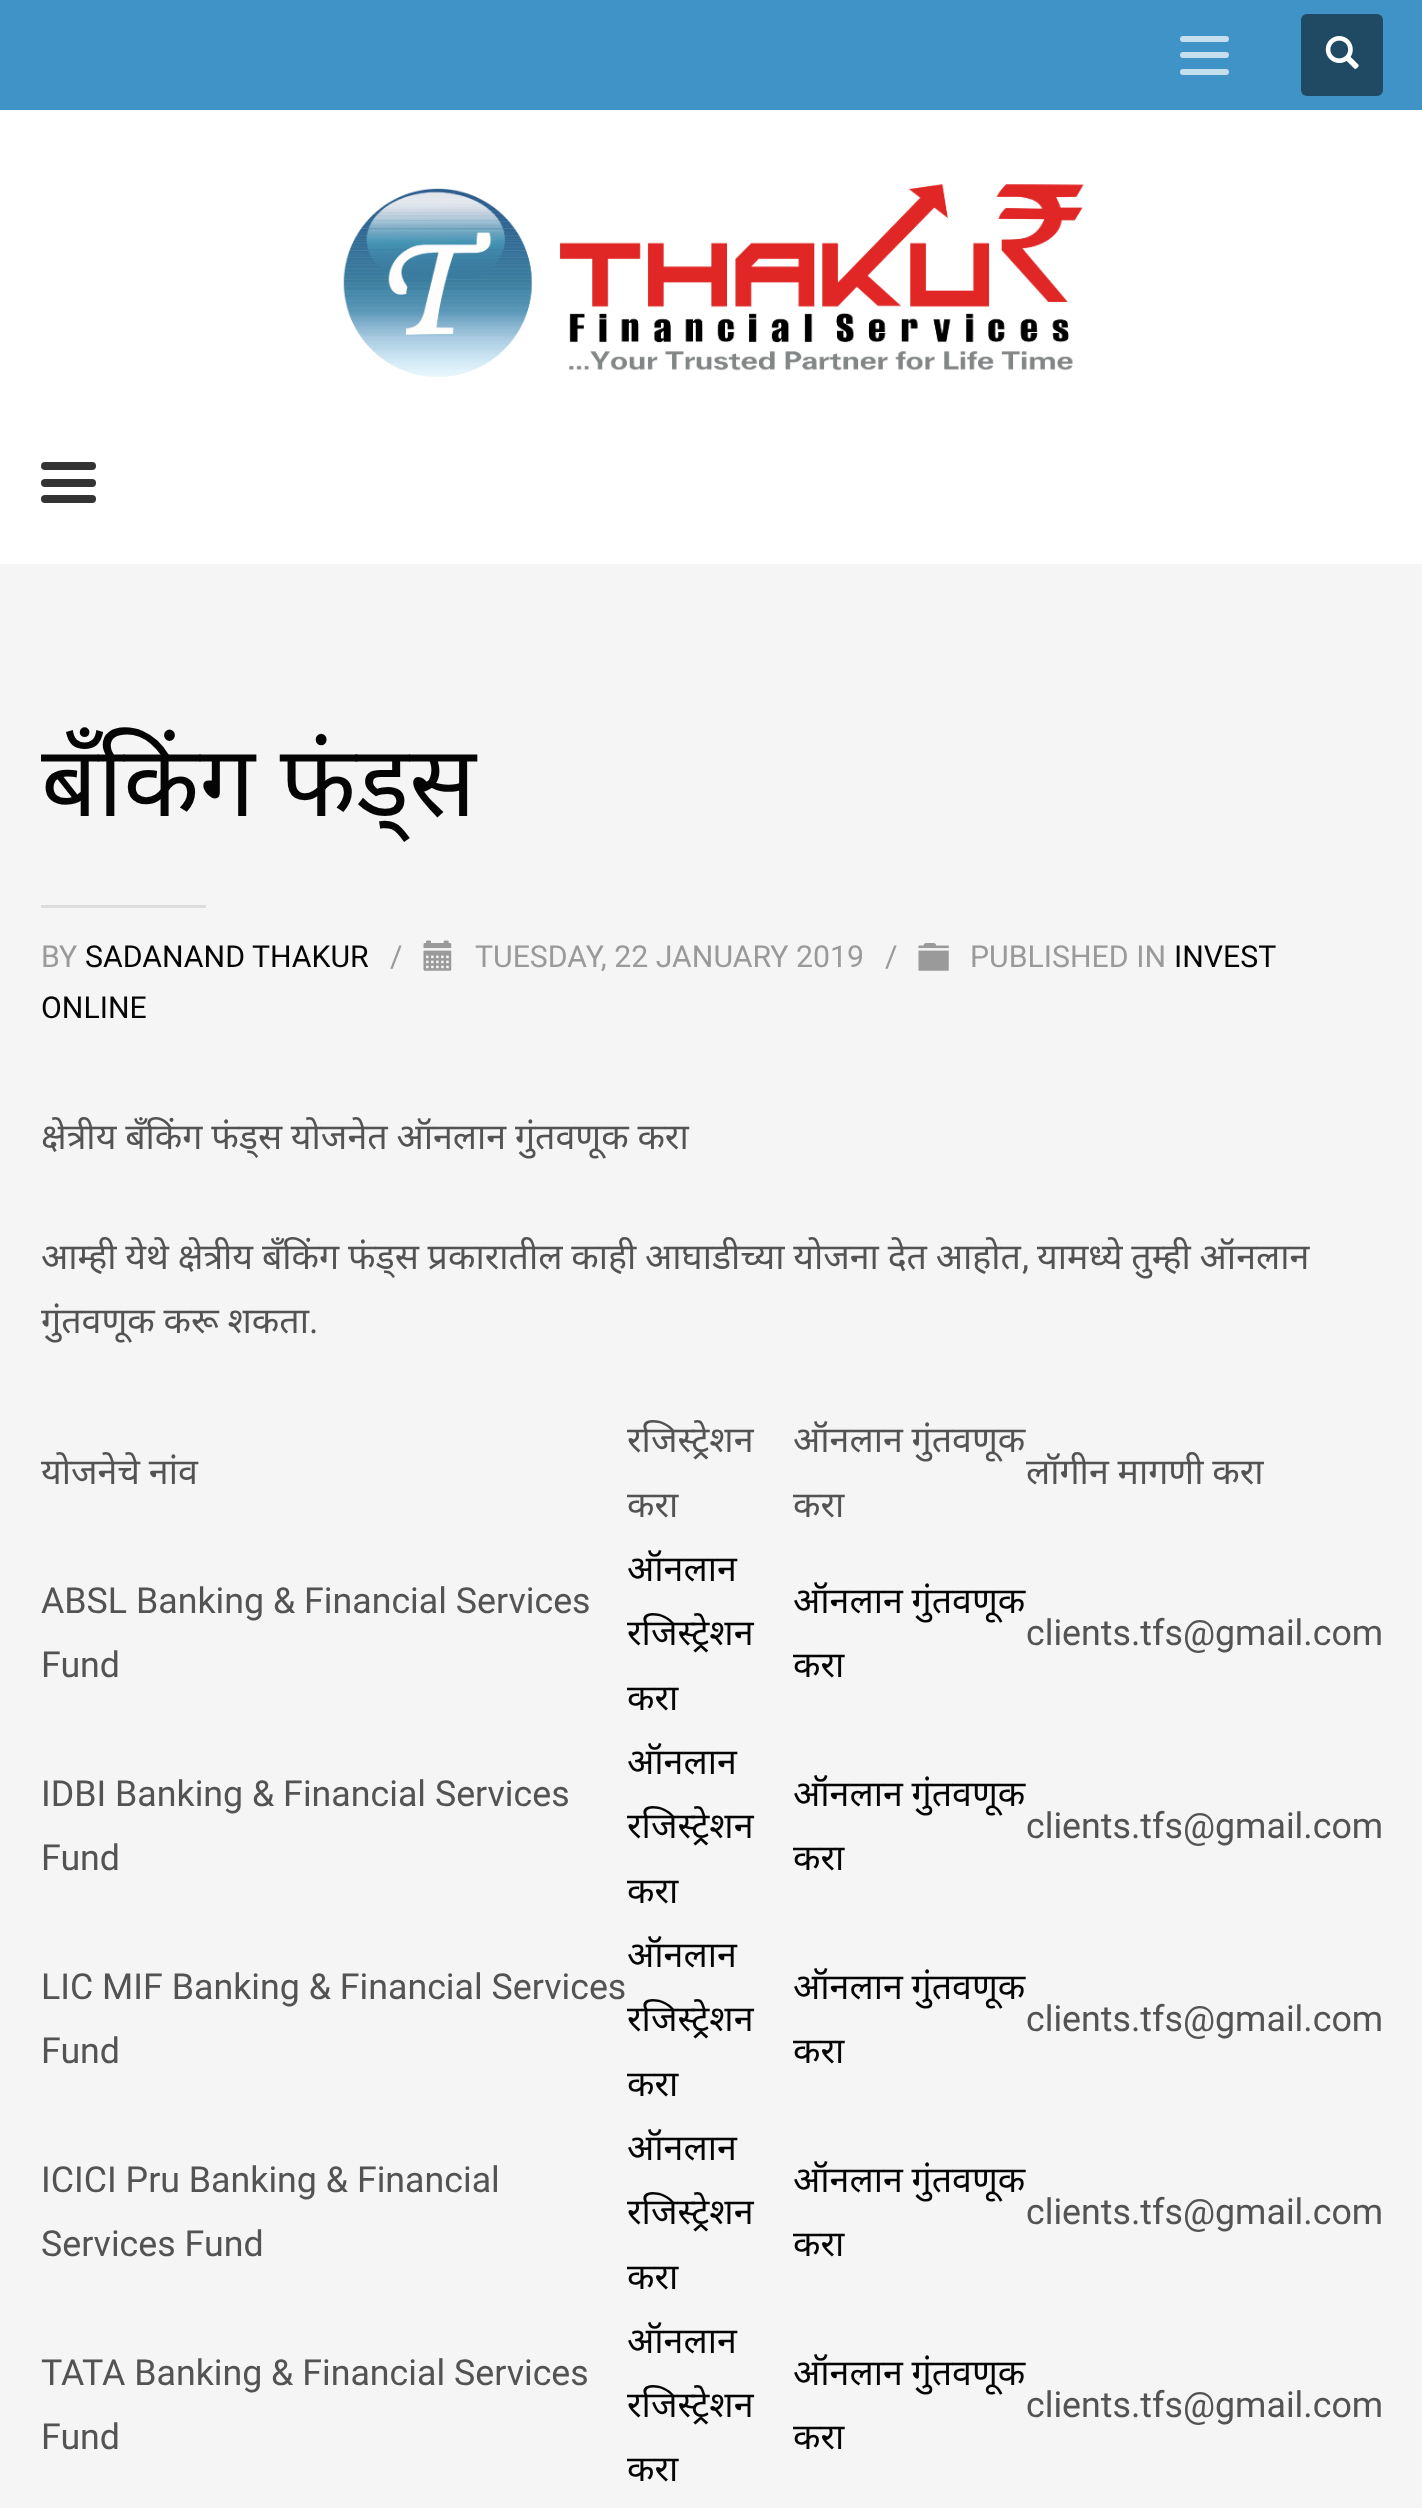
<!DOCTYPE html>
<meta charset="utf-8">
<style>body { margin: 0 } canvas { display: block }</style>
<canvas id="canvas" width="1422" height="2508"></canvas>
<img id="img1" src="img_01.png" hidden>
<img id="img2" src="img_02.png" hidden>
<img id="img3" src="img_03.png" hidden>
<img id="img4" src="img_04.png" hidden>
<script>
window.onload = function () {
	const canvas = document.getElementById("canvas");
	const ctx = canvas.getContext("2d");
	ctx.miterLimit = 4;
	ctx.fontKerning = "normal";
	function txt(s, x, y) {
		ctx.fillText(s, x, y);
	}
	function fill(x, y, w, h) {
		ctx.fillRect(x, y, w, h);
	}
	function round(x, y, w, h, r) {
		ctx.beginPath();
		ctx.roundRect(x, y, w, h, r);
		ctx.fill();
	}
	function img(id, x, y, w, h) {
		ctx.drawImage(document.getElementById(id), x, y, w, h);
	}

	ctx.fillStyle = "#F5F5F5";
	fill(0, 0, 1422, 2508);
	ctx.fillStyle = "#FFFFFF";
	fill(0, 110, 1422, 454);
	ctx.fillStyle = "#4093C6";
	fill(0, 0, 1422, 110);
	ctx.fillStyle = "#C6DFEE";
	round(1180, 69, 49, 6, 3);
	round(1180, 52, 49, 6, 3);
	round(1180, 36, 49, 6, 3);
	ctx.fillStyle = "#204A63";
	round(1301, 14, 82, 82, 6);
	img("img1", 1325, 36, 34, 33);
	img("img2", 343, 184, 741, 193);
	ctx.fillStyle = "#333333";
	round(41, 462, 55, 8, 4);
	round(41, 479, 55, 8, 4);
	round(41, 495, 55, 8, 4);
	ctx.fillStyle = "#DDDDDD";
	fill(41, 905, 165, 3);
	img("img3", 423, 940, 29, 31);
	img("img4", 918, 943, 31, 28);
	ctx.wordSpacing = "-1px";
	ctx.font = "99px Noto Sans";
	ctx.fillStyle = "#050505";
	txt("बँकिंग फंड्स", 41, 816);
	ctx.wordSpacing = "0px";
	ctx.font = "30.25px Roboto";
	ctx.fillStyle = "#9A9A9A";
	txt("BY", 41, 967);
	ctx.fillStyle = "#050505";
	txt("SADANAND THAKUR", 85, 967);
	ctx.fillStyle = "#9A9A9A";
	txt("/", 390, 967);
	txt("TUESDAY, 22 JANUARY 2019", 475, 967);
	txt("/", 885, 967);
	txt("PUBLISHED IN", 970, 967);
	ctx.fillStyle = "#050505";
	txt("INVEST", 1174, 967);
	txt("ONLINE", 41, 1018);
	ctx.wordSpacing = "-0.5px";
	ctx.font = "35.75px Noto Sans";
	ctx.fillStyle = "#535353";
	txt("क्षेत्रीय बँकिंग फंड्स योजनेत ऑनलान गुंतवणूक करा", 41, 1149);
	txt("आम्ही येथे क्षेत्रीय बँकिंग फंड्स प्रकारातील काही आघाडीच्या योजना देत आहोत", 41, 1269);
	ctx.wordSpacing = "0px";
	ctx.font = "35.75px Roboto";
	txt(",", 1022, 1269);
	ctx.wordSpacing = "-0.5px";
	ctx.font = "35.75px Noto Sans";
	txt("यामध्ये तुम्ही ऑनलान", 1037, 1269);
	txt("गुंतवणूक करू शकता", 41, 1333);
	ctx.wordSpacing = "0px";
	ctx.font = "35.75px Roboto";
	txt(".", 309, 1333);
	ctx.wordSpacing = "-0.5px";
	ctx.font = "35.75px Noto Sans";
	txt("योजनेचे नांव", 41, 1484);
	ctx.wordSpacing = "0px";
	txt("रजिस्ट्रेशन", 627, 1452);
	txt("करा", 627, 1517);
	ctx.wordSpacing = "-0.5px";
	txt("ऑनलान गुंतवणूक", 793, 1452);
	ctx.wordSpacing = "0px";
	txt("करा", 793, 1517);
	ctx.wordSpacing = "-0.5px";
	txt("लॉगीन मागणी करा", 1026, 1484);
	ctx.wordSpacing = "0px";
	ctx.font = "35.75px Roboto";
	txt("ABSL Banking & Financial Services", 41, 1613);
	txt("Fund", 41, 1677);
	ctx.font = "35.75px Noto Sans";
	ctx.fillStyle = "#050505";
	txt("ऑनलान", 627, 1581);
	txt("रजिस्ट्रेशन", 627, 1645);
	txt("करा", 627, 1710);
	ctx.wordSpacing = "-0.5px";
	txt("ऑनलान गुंतवणूक", 793, 1613);
	ctx.wordSpacing = "0px";
	txt("करा", 793, 1677);
	ctx.font = "35.75px Roboto";
	ctx.fillStyle = "#535353";
	txt("clients.tfs@gmail.com", 1026, 1645);
	txt("IDBI Banking & Financial Services", 41, 1806);
	txt("Fund", 41, 1870);
	ctx.font = "35.75px Noto Sans";
	ctx.fillStyle = "#050505";
	txt("ऑनलान", 627, 1774);
	txt("रजिस्ट्रेशन", 627, 1838);
	txt("करा", 627, 1903);
	ctx.wordSpacing = "-0.5px";
	txt("ऑनलान गुंतवणूक", 793, 1806);
	ctx.wordSpacing = "0px";
	txt("करा", 793, 1870);
	ctx.font = "35.75px Roboto";
	ctx.fillStyle = "#535353";
	txt("clients.tfs@gmail.com", 1026, 1838);
	txt("LIC MIF Banking & Financial Services", 41, 1999);
	txt("Fund", 41, 2063);
	ctx.font = "35.75px Noto Sans";
	ctx.fillStyle = "#050505";
	txt("ऑनलान", 627, 1967);
	txt("रजिस्ट्रेशन", 627, 2031);
	txt("करा", 627, 2096);
	ctx.wordSpacing = "-0.5px";
	txt("ऑनलान गुंतवणूक", 793, 1999);
	ctx.wordSpacing = "0px";
	txt("करा", 793, 2063);
	ctx.font = "35.75px Roboto";
	ctx.fillStyle = "#535353";
	txt("clients.tfs@gmail.com", 1026, 2031);
	txt("ICICI Pru Banking & Financial", 41, 2192);
	txt("Services Fund", 41, 2256);
	ctx.font = "35.75px Noto Sans";
	ctx.fillStyle = "#050505";
	txt("ऑनलान", 627, 2160);
	txt("रजिस्ट्रेशन", 627, 2224);
	txt("करा", 627, 2289);
	ctx.wordSpacing = "-0.5px";
	txt("ऑनलान गुंतवणूक", 793, 2192);
	ctx.wordSpacing = "0px";
	txt("करा", 793, 2256);
	ctx.font = "35.75px Roboto";
	ctx.fillStyle = "#535353";
	txt("clients.tfs@gmail.com", 1026, 2224);
	txt("TATA Banking & Financial Services", 41, 2385);
	txt("Fund", 41, 2449);
	ctx.font = "35.75px Noto Sans";
	ctx.fillStyle = "#050505";
	txt("ऑनलान", 627, 2353);
	txt("रजिस्ट्रेशन", 627, 2417);
	txt("करा", 627, 2481);
	ctx.wordSpacing = "-0.5px";
	txt("ऑनलान गुंतवणूक", 793, 2385);
	ctx.wordSpacing = "0px";
	txt("करा", 793, 2449);
	ctx.font = "35.75px Roboto";
	ctx.fillStyle = "#535353";
	txt("clients.tfs@gmail.com", 1026, 2417);
};
</script>
